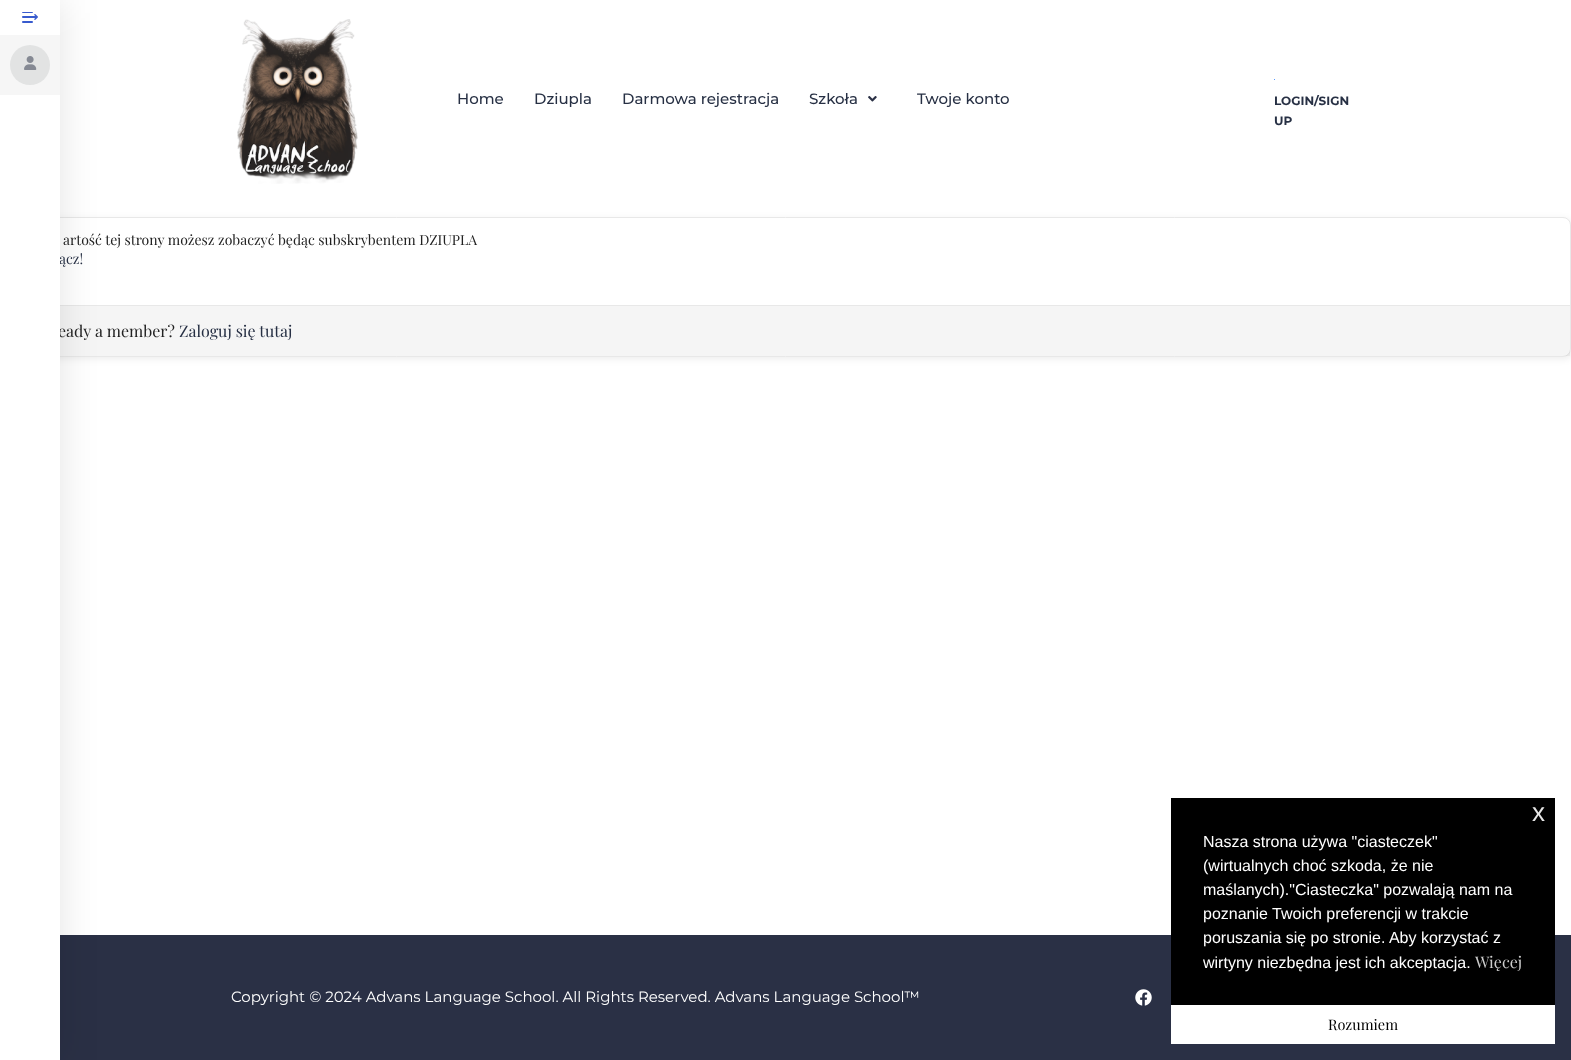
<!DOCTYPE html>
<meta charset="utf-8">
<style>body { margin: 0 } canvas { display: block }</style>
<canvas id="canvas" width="1571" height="1060"></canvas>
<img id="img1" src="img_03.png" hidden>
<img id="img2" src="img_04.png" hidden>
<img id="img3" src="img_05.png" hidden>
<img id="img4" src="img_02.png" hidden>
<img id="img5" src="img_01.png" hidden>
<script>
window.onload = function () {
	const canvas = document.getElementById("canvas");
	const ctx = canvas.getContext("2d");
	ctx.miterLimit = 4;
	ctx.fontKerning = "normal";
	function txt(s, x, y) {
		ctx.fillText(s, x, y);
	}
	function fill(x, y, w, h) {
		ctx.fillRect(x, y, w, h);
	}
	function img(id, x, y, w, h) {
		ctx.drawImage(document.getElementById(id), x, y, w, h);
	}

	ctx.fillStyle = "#FFFFFF";
	fill(0, 0, 1571, 1060);
	ctx.fillStyle = "rgba(0, 0, 0, 0.07)";
	ctx.filter = "blur(3.5px)";
	ctx.beginPath();
	ctx.roundRect(2, 219, 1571, 140, 8);
	ctx.fill();
	ctx.filter = "none";
	ctx.fillStyle = "#FFFFFF";
	ctx.beginPath();
	ctx.roundRect(0.5, 217.5, 1570, 139, 7.5);
	ctx.fill();
	ctx.strokeStyle = "#E8E8E8";
	ctx.stroke();
	ctx.fillStyle = "rgba(0, 0, 0, 0.04)";
	fill(60, 306, 1510, 50);
	ctx.fillStyle = "#E8E8E8";
	fill(60, 305, 1510, 1);
	ctx.fillStyle = "#2A3045";
	fill(60, 935, 1511, 125);
	ctx.fillStyle = "rgba(0, 0, 0, 0.11)";
	ctx.filter = "blur(19px)";
	ctx.beginPath();
	ctx.rect(0, 0, 60, 1060);
	ctx.fill();
	ctx.filter = "none";
	img("img1", 237, 19, 121, 165);
	img("img2", 868, 96, 9, 6);
	ctx.fillStyle = "#227AFF";
	ctx.beginPath();
	ctx.arc(1274.5, 79.5, 0.5, 0, Math.PI * 2);
	ctx.fill();
	img("img3", 1135, 989, 17, 17);
	ctx.fillStyle = "#000000";
	fill(1171, 798, 384, 207);
	ctx.fillStyle = "#FFFFFF";
	fill(1171, 1005, 384, 39);
	ctx.font = "500 15px Montserrat";
	ctx.fillStyle = "#273044";
	txt("Home", 457, 104);
	txt("Dziupla", 534, 104);
	txt("Darmowa rejestracja", 622, 104);
	txt("Szkoła", 809, 104);
	txt("Twoje konto", 917, 104);
	ctx.font = "bold 12px Montserrat";
	txt("LOGIN/SIGN", 1274, 105);
	txt("UP", 1274, 125);
	ctx.font = "14px Playfair Display";
	ctx.fillStyle = "#222222";
	txt("artość tej strony możesz zobaczyć będąc subskrybentem DZIUPLA", 63, 245);
	ctx.fillStyle = "#273044";
	txt("ącz!", 59, 264);
	ctx.font = "16px Playfair Display";
	ctx.fillStyle = "#222222";
	txt("eady a member?", 58, 337);
	ctx.fillStyle = "#FFFFFF";
	fill(0, 0, 60, 1060);
	ctx.fillStyle = "#F6F6F6";
	fill(0, 35, 60, 60);
	ctx.fillStyle = "#E2E3E3";
	ctx.beginPath();
	ctx.arc(30, 65, 20, 0, Math.PI * 2);
	ctx.fill();
	img("img4", 24, 56, 13, 14);
	img("img5", 22, 12, 16, 11);
	ctx.fillStyle = "#273044";
	txt("Zaloguj się tutaj", 179, 337);
	ctx.font = "15px Montserrat";
	ctx.fillStyle = "#FFFFFF";
	txt("Copyright © 2024 Advans Language School. All Rights Reserved. Advans Language School™", 231, 1002);
	ctx.font = "26px Liberation Sans";
	ctx.fillStyle = "#E6E6E6";
	txt("x", 1532, 821);
	ctx.font = "16px Liberation Sans";
	ctx.fillStyle = "#FFFFFF";
	txt("Nasza strona używa \"ciasteczek\"", 1203, 847);
	txt("(wirtualnych choć szkoda, że nie", 1203, 871);
	txt("maślanych).\"Ciasteczka\" pozwalają nam na", 1203, 895);
	txt("poznanie Twoich preferencji w trakcie", 1203, 919);
	txt("poruszania się po stronie. Aby korzystać z", 1203, 943);
	txt("wirtyny niezbędna jest ich akceptacja.", 1203, 968);
	ctx.font = "16px Playfair Display";
	ctx.fillStyle = "#CCCCCC";
	txt("Więcej", 1475, 968);
	ctx.font = "14.5px Playfair Display";
	ctx.fillStyle = "#000000";
	txt("Rozumiem", 1328, 1030);
};
</script>
